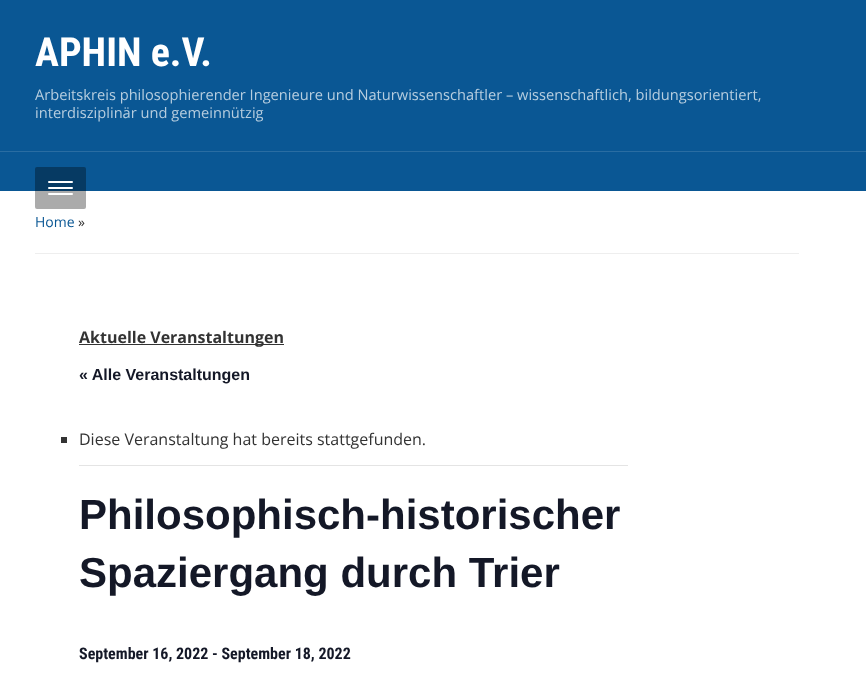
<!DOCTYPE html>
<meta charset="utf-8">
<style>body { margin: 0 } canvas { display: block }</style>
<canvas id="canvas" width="866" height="699"></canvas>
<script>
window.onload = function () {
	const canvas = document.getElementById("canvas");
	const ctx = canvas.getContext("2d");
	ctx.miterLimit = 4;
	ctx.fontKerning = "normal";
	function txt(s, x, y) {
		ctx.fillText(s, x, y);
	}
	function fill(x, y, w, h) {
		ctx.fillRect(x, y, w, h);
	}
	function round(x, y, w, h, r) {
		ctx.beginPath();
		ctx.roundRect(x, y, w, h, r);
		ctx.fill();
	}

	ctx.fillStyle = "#FFFFFF";
	fill(0, 0, 866, 699);
	ctx.fillStyle = "#0A5794";
	fill(0, 0, 866, 191);
	ctx.fillStyle = "#2A6DA2";
	fill(0, 151, 866, 1);
	ctx.fillStyle = "rgba(0, 0, 0, 0.33)";
	round(35, 167, 51, 42, 2);
	ctx.fillStyle = "#FFFFFF";
	round(48, 181, 25, 2, 1);
	round(48, 187, 25, 2, 1);
	round(48, 193, 25, 2, 1);
	ctx.fillStyle = "#EEEEEE";
	fill(35, 253, 764, 1);
	ctx.fillStyle = "#333333";
	fill(79, 344, 205, 1);
	ctx.fillStyle = "#E4E4E4";
	fill(79, 465, 549, 1);
	ctx.fillStyle = "#333333";
	fill(61, 437, 6, 6);
	ctx.font = "bold 40px Roboto Condensed";
	ctx.fillStyle = "#FFFFFF";
	txt("APHIN e.V.", 35, 66);
	ctx.font = "14.65px Open Sans";
	ctx.fillStyle = "#B6CDDF";
	txt("Arbeitskreis philosophierender Ingenieure und Naturwissenschaftler – wissenschaftlich, bildungsorientiert,", 35, 100);
	txt("interdisziplinär und gemeinnützig", 35, 118);
	ctx.font = "14px Open Sans";
	ctx.fillStyle = "#0A5794";
	txt("Home", 35, 227);
	ctx.fillStyle = "#333333";
	txt("»", 78, 227);
	ctx.font = "bold 16px Open Sans";
	txt("Aktuelle Veranstaltungen", 79, 343);
	ctx.font = "bold 16px Liberation Sans";
	ctx.fillStyle = "#141827";
	txt("« Alle Veranstaltungen", 79, 380);
	ctx.font = "16px Open Sans";
	ctx.fillStyle = "#333333";
	txt("Diese Veranstaltung hat bereits stattgefunden.", 79, 445);
	ctx.font = "bold 42px Liberation Sans";
	ctx.fillStyle = "#141827";
	txt("Philosophisch-historischer", 79, 529);
	txt("Spaziergang durch Trier", 79, 587);
	ctx.font = "bold 16px Roboto Condensed";
	txt("September 16, 2022 - September 18, 2022", 79, 659);
};
</script>
